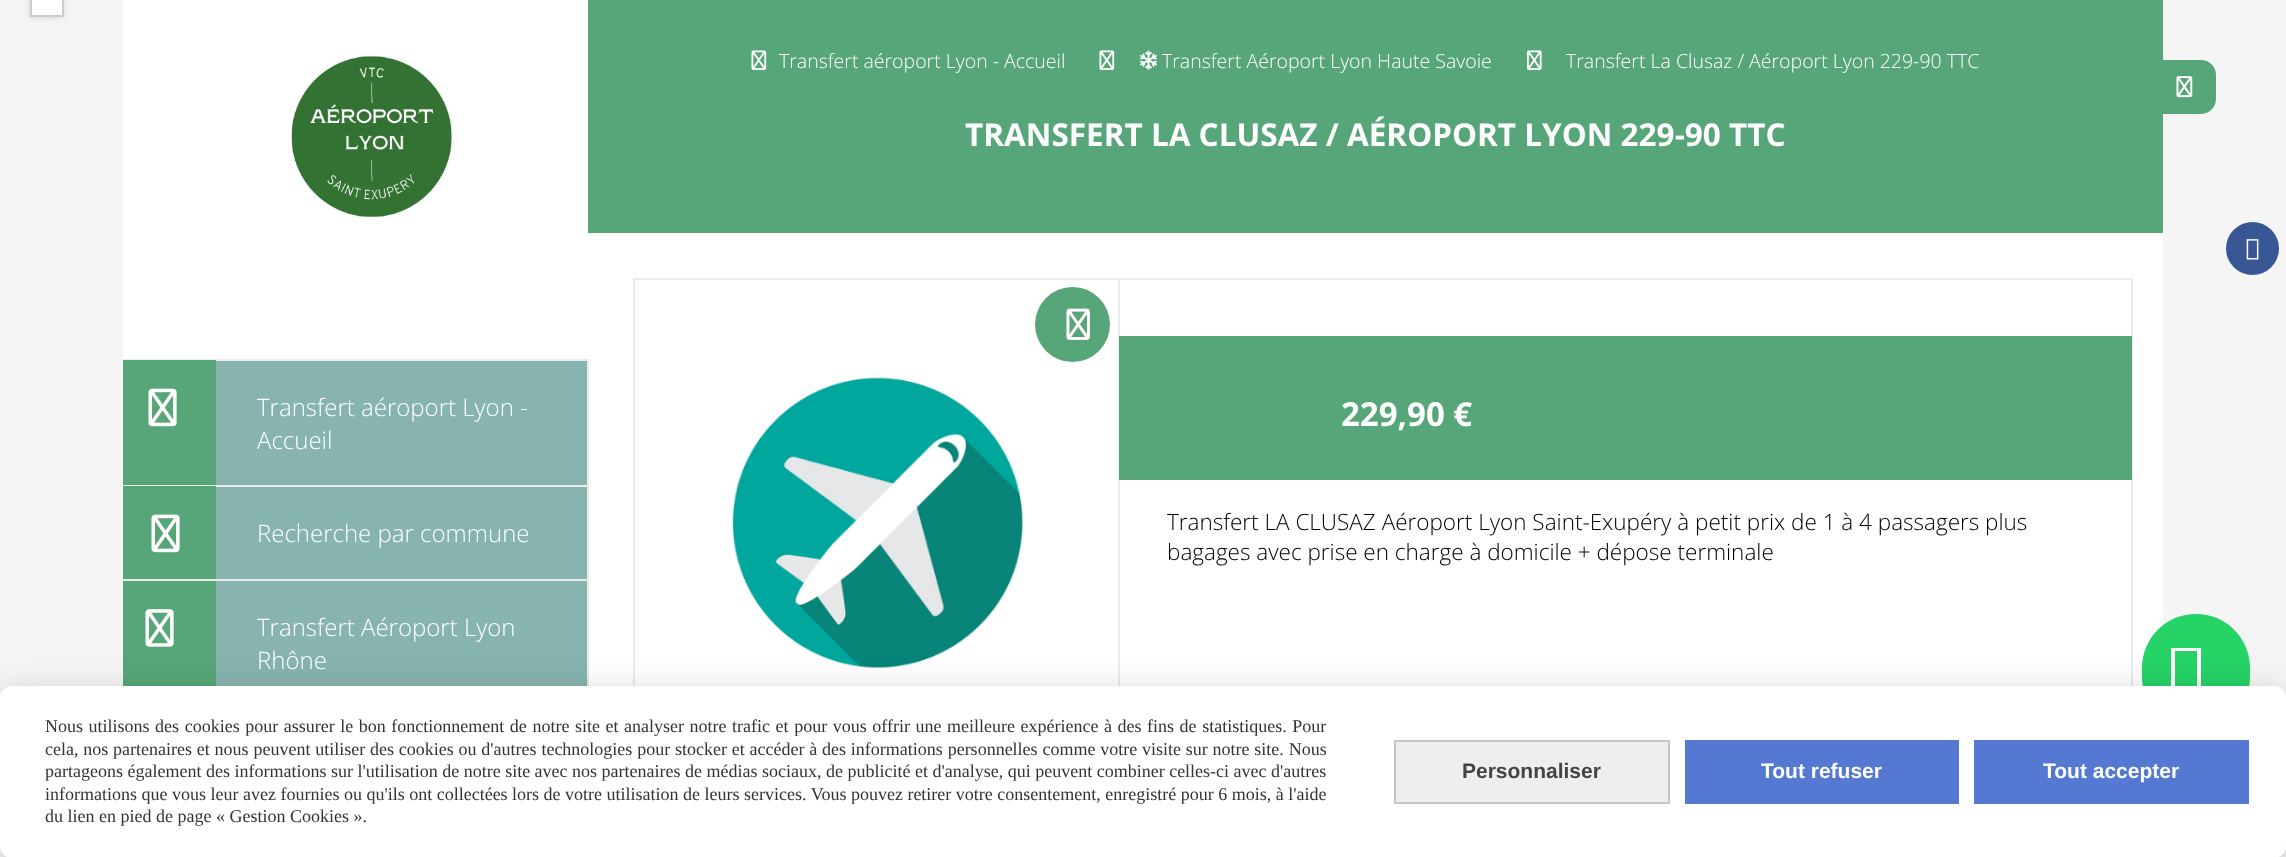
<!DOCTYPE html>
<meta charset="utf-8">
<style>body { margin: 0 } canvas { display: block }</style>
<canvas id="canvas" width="2286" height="857"></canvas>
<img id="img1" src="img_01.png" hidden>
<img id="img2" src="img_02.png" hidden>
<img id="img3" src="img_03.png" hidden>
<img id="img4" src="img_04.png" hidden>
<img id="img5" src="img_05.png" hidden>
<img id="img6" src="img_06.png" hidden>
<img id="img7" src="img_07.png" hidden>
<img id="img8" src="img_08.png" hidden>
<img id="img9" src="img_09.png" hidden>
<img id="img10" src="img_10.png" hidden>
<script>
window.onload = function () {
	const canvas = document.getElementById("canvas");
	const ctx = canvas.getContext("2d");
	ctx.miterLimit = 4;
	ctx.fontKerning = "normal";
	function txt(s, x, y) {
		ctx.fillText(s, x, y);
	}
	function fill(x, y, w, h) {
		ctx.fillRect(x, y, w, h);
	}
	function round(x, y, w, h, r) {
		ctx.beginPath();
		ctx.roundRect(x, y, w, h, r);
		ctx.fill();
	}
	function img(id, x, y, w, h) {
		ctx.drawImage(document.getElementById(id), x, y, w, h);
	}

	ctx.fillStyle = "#F5F5F5";
	fill(0, 0, 2286, 857);
	ctx.fillStyle = "#CCCCCC";
	ctx.filter = "blur(3px)";
	ctx.beginPath();
	ctx.rect(30, 0, 33, 17);
	ctx.fill();
	ctx.filter = "none";
	ctx.fillStyle = "#FFFFFF";
	fill(32, 0, 30, 15);
	ctx.fillStyle = "#CCCCCC";
	fill(62, 0, 2, 17);
	fill(30, 15, 33, 2);
	fill(30, 0, 2, 17);
	ctx.fillStyle = "#FFFFFF";
	fill(123, 0, 465, 359);
	img("img1", 291, 56, 161, 161);
	ctx.fillStyle = "#87B4AF";
	fill(216, 361, 371, 124);
	ctx.fillStyle = "#EBEBEB";
	fill(123, 359, 465, 2);
	ctx.fillStyle = "#FFFFFF";
	fill(588, 233, 1575, 453);
	ctx.fillStyle = "#EBEBEB";
	fill(587, 359, 2, 127);
	ctx.fillStyle = "#57A679";
	fill(123, 360, 93, 125);
	img("img2", 148, 388, 29, 39);
	ctx.fillStyle = "#87B4AF";
	fill(216, 487, 371, 92);
	ctx.fillStyle = "#EBEBEB";
	fill(123, 485, 465, 2);
	fill(587, 485, 2, 96);
	ctx.fillStyle = "#57A679";
	fill(123, 486, 93, 93);
	img("img2", 151, 514, 29, 39);
	ctx.fillStyle = "#87B4AF";
	fill(216, 581, 371, 105);
	ctx.fillStyle = "#EBEBEB";
	fill(123, 579, 465, 2);
	fill(587, 579, 2, 107);
	ctx.fillStyle = "#57A679";
	fill(123, 581, 93, 105);
	img("img3", 145, 609, 29, 38);
	fill(588, 0, 1575, 233);
	img("img4", 751, 50, 16, 20);
	img("img4", 1099, 50, 16, 20);
	img("img5", 1140, 50, 17, 20);
	img("img6", 1527, 50, 15, 20);
	ctx.strokeStyle = "#EBEBEB";
	ctx.lineWidth = 2;
	ctx.strokeRect(634, 279, 1498, 484);
	ctx.beginPath();
	ctx.arc(1072.5, 324.5, 37.5, 0, Math.PI * 2);
	ctx.fill();
	img("img7", 1066, 308, 24, 32);
	img("img8", 732, 377, 291, 292);
	ctx.fillStyle = "#EBEBEB";
	fill(1118, 279, 2, 407);
	ctx.fillStyle = "#57A679";
	fill(1119, 336, 1013, 144);
	ctx.beginPath();
	ctx.roundRect(2163, 60, 53, 54, [0, 15, 15, 0]);
	ctx.fill();
	img("img9", 2176, 76, 17, 22);
	ctx.fillStyle = "#3A5795";
	ctx.beginPath();
	ctx.arc(2252.5, 248.5, 26.5, 0, Math.PI * 2);
	ctx.fill();
	img("img10", 2246, 239, 13, 21);
	ctx.fillStyle = "#25D366";
	round(2142, 614, 108, 117, 54);
	ctx.fillStyle = "#FFFFFF";
	ctx.beginPath();
	ctx.moveTo(2171, 699);
	ctx.lineTo(2171, 648);
	ctx.lineTo(2201, 648);
	ctx.lineTo(2201, 699);
	ctx.closePath();
	ctx.moveTo(2175, 695);
	ctx.lineTo(2197, 695);
	ctx.lineTo(2197, 651);
	ctx.lineTo(2175, 651);
	ctx.closePath();
	ctx.fill();
	ctx.fillStyle = "rgba(0, 0, 0, 0.05)";
	ctx.filter = "blur(4.5px)";
	ctx.beginPath();
	ctx.roundRect(0, 689, 2286, 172, 12);
	ctx.fill();
	ctx.filter = "none";
	ctx.fillStyle = "rgba(0, 0, 0, 0.15)";
	ctx.filter = "blur(18px)";
	ctx.beginPath();
	ctx.roundRect(0, 692, 2286, 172, 12);
	ctx.fill();
	ctx.filter = "none";
	ctx.fillStyle = "#FFFFFF";
	round(0, 686, 2286, 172, 12);
	ctx.fillStyle = "#EEEEEE";
	ctx.beginPath();
	ctx.rect(1395, 741, 274, 62);
	ctx.fill();
	ctx.strokeStyle = "#C5C5C5";
	ctx.stroke();
	ctx.fillStyle = "#5579D2";
	fill(1685, 740, 274, 64);
	fill(1974, 740, 275, 64);
	ctx.font = "300 24px Open Sans";
	ctx.fillStyle = "#FFFFFF";
	txt("Transfert aéroport Lyon -", 257, 416);
	txt("Accueil", 257, 449);
	txt("Recherche par commune", 257, 542);
	txt("Transfert Aéroport Lyon", 257, 636);
	txt("Rhône", 257, 669);
	ctx.font = "300 19.5px Open Sans";
	txt("Transfert aéroport Lyon - Accueil", 779, 68);
	txt("Transfert Aéroport Lyon Haute Savoie", 1162, 68);
	txt("Transfert La Clusaz / Aéroport Lyon 229-90 TTC", 1566, 68);
	ctx.font = "bold 31.5px Open Sans";
	txt("TRANSFERT LA CLUSAZ / AÉROPORT LYON 229-90 TTC", 965, 146);
	ctx.font = "bold 33px Open Sans";
	txt("229,90 €", 1341, 426);
	ctx.font = "300 22.5px Open Sans";
	ctx.fillStyle = "#000000";
	txt("Transfert LA CLUSAZ Aéroport Lyon Saint-Exupéry à petit prix de 1 à 4 passagers plus", 1167, 530);
	txt("bagages avec prise en charge à domicile + dépose terminale", 1167, 560);
	ctx.wordSpacing = "1.05px";
	ctx.font = "18px Liberation Serif";
	ctx.fillStyle = "#333333";
	txt("Nous utilisons des cookies pour assurer le bon fonctionnement de notre site et analyser notre trafic et pour vous offrir une meilleure expérience à des fins de statistiques. Pour", 45, 732);
	ctx.wordSpacing = "0.3px";
	txt("cela, nos partenaires et nous peuvent utiliser des cookies ou d'autres technologies pour stocker et accéder à des informations personnelles comme votre visite sur notre site. Nous", 45, 755);
	ctx.wordSpacing = "0px";
	txt("partageons également des informations sur l'utilisation de notre site avec nos partenaires de médias sociaux, de publicité et d'analyse, qui peuvent combiner celles-ci avec d'autres", 45, 777);
	txt("informations que vous leur avez fournies ou qu'ils ont collectées lors de votre utilisation de leurs services. Vous pouvez retirer votre consentement, enregistré pour 6 mois, à l'aide", 45, 800);
	txt("du lien en pied de page « Gestion Cookies ».", 45, 822);
	ctx.font = "bold 21px Liberation Sans";
	ctx.fillStyle = "#444444";
	txt("Personnaliser", 1462, 778);
	ctx.fillStyle = "#FFFFFF";
	txt("Tout refuser", 1761, 778);
	txt("Tout accepter", 2043, 778);
};
</script>
